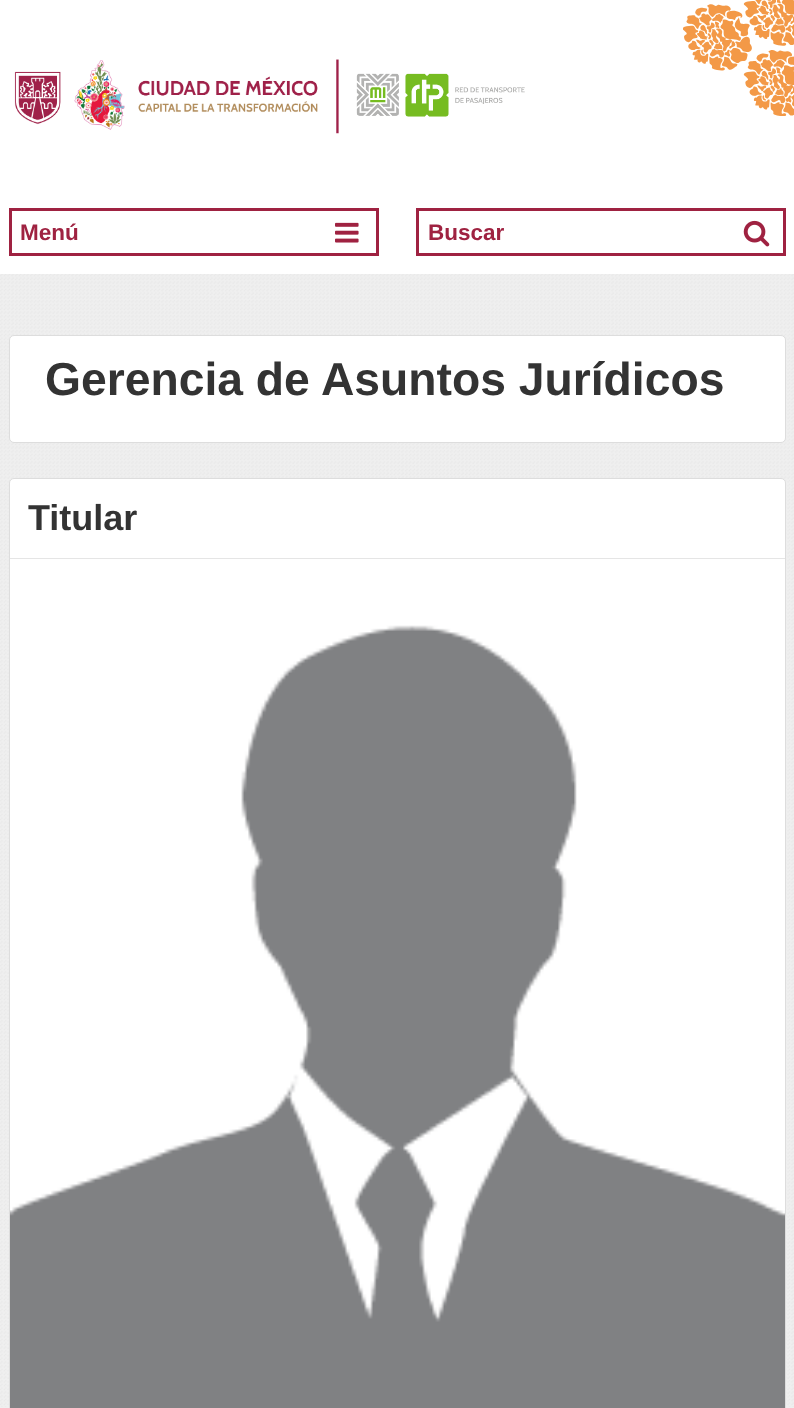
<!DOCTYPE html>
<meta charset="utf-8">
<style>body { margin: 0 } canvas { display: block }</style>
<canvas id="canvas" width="794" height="1408"></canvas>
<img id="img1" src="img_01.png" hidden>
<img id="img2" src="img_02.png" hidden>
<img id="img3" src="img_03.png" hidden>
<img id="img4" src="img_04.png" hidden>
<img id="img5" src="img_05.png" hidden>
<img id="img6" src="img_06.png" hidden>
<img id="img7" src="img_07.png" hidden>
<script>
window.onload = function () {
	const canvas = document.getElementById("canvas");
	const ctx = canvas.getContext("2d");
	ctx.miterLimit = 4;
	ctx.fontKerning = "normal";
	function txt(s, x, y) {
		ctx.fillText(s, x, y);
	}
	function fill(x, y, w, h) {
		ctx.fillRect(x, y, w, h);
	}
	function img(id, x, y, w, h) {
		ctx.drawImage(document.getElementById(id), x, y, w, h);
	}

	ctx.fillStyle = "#FFFFFF";
	fill(0, 0, 794, 1408);
	img("img1", 683, 0, 111, 116);
	img("img2", 14, 59, 325, 75);
	img("img3", 356, 73, 169, 44);
	ctx.strokeStyle = "#9F2241";
	ctx.lineWidth = 3;
	ctx.strokeRect(10.5, 209.5, 367, 45);
	img("img4", 335, 222, 24, 21);
	ctx.strokeRect(417.5, 209.5, 367, 45);
	img("img5", 743, 220, 27, 27);
	ctx.fillStyle = "#EFEFEF";
	fill(0, 274, 794, 1134);
	img("img6", 0, 274, 794, 1133);
	ctx.fillStyle = "#FFFFFF";
	ctx.beginPath();
	ctx.roundRect(9.5, 335.5, 776, 107, 4.5);
	ctx.fill();
	ctx.strokeStyle = "#DDDDDD";
	ctx.lineWidth = 1;
	ctx.stroke();
	ctx.beginPath();
	ctx.roundRect(9.5, 478.5, 776, 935, 4.5);
	ctx.fill();
	ctx.stroke();
	ctx.fillStyle = "#DDDDDD";
	fill(10, 558, 775, 1);
	img("img7", 10, 558, 775, 850);
	ctx.font = "bold 22.5px Liberation Sans";
	ctx.fillStyle = "#9F2241";
	txt("Menú", 20, 240);
	txt("Buscar", 428, 240);
	ctx.font = "bold 46.25px Liberation Sans";
	ctx.fillStyle = "#333333";
	txt("Gerencia de Asuntos Jurídicos", 45, 395);
	ctx.font = "bold 36px Liberation Sans";
	txt("Titular", 28, 530);
};
</script>
